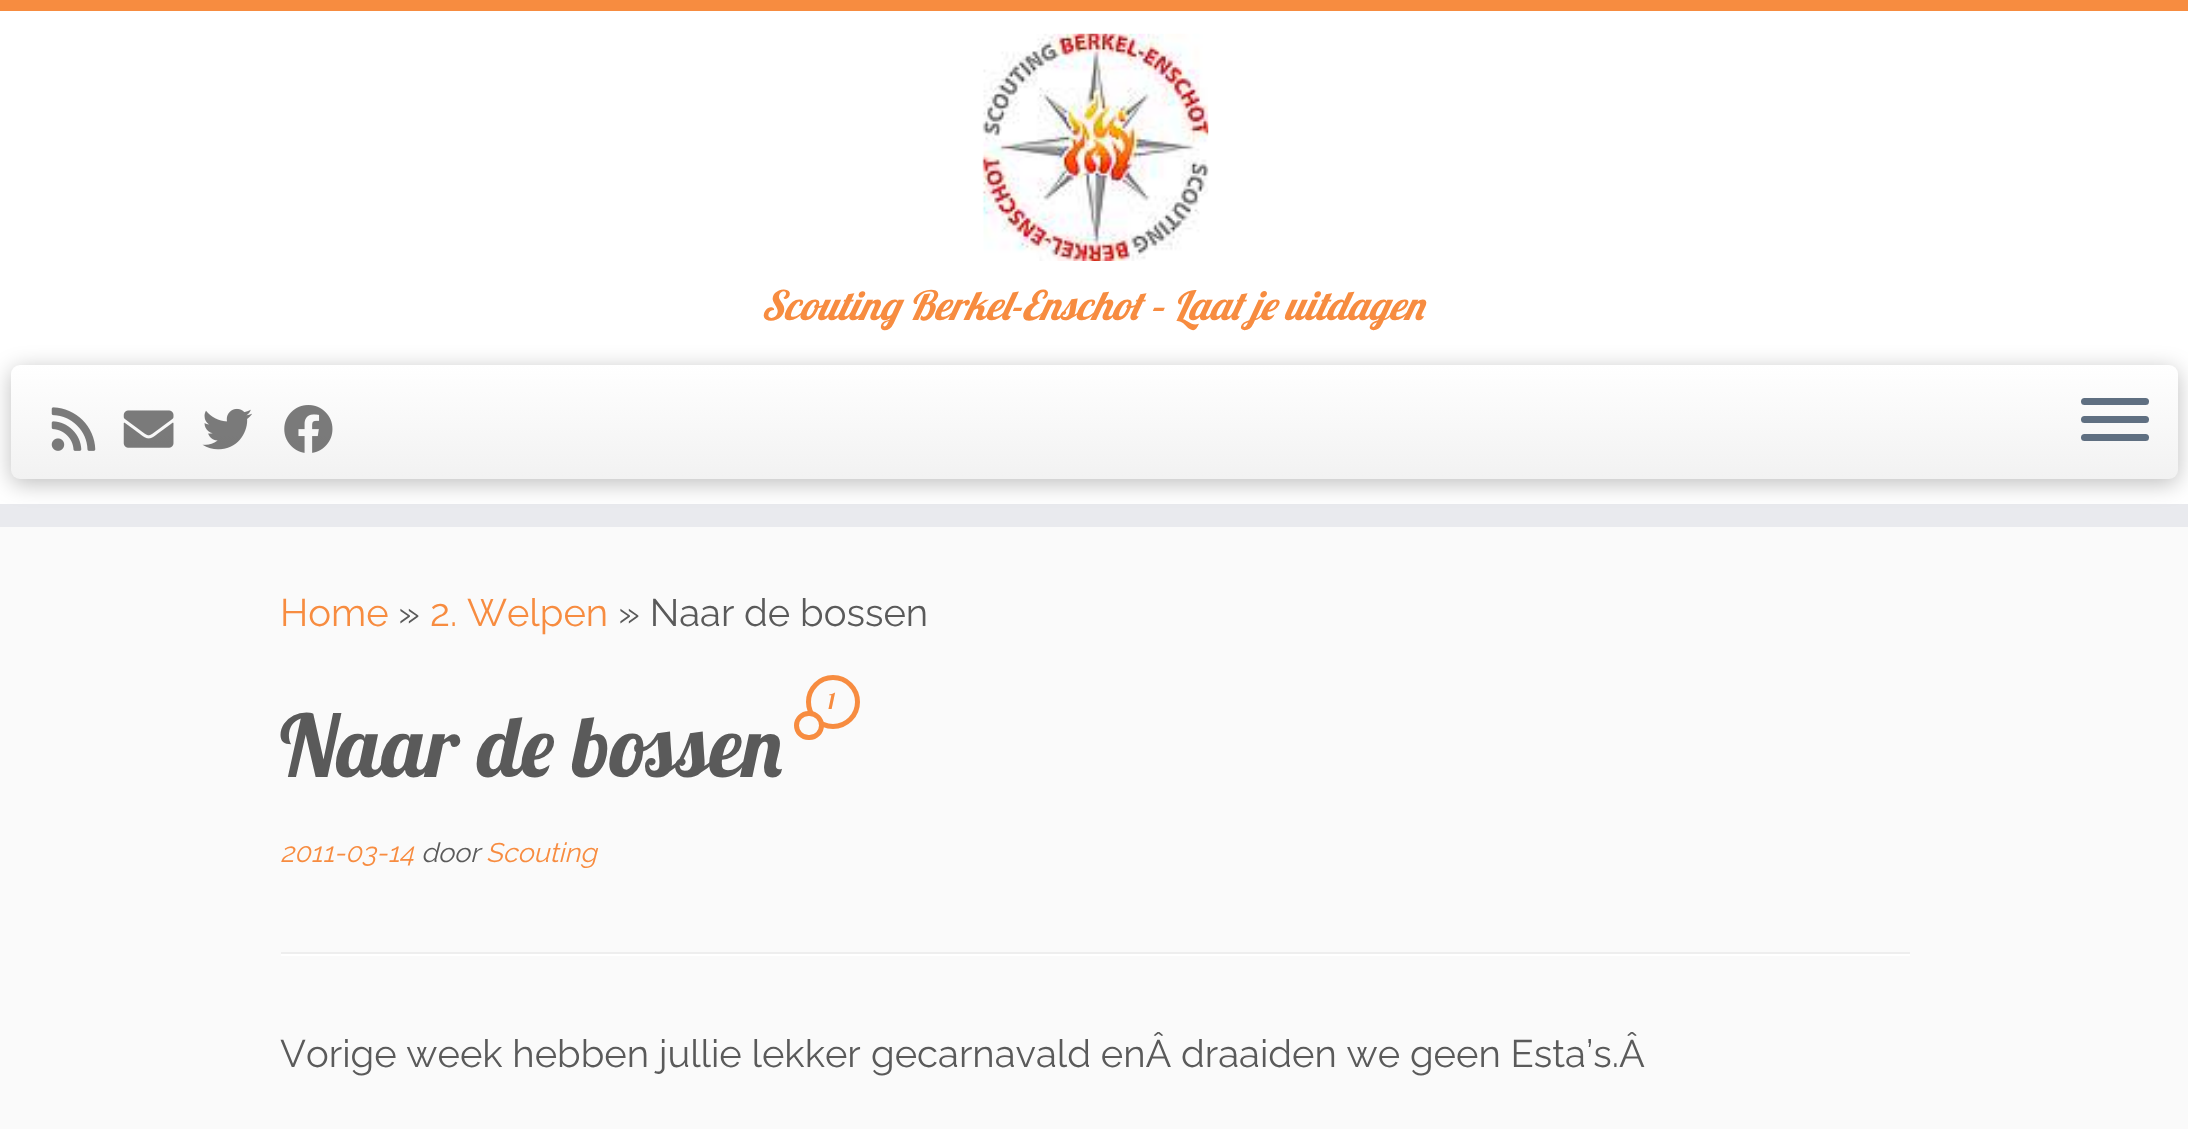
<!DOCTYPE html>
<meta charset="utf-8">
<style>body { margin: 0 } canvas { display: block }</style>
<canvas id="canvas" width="2188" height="1129"></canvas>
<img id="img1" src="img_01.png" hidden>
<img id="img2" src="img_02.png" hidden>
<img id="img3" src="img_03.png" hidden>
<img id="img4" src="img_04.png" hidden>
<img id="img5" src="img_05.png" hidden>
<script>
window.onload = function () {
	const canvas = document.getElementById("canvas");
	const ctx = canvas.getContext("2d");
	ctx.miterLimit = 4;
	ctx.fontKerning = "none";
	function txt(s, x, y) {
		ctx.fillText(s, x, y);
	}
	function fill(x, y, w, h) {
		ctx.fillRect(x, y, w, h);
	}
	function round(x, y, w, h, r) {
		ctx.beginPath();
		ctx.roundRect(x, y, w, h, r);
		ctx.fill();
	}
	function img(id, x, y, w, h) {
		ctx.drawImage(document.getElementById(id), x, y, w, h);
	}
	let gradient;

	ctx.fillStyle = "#FAFAFA";
	fill(0, 0, 2188, 1129);
	ctx.fillStyle = "#FFFFFF";
	fill(0, 11, 2188, 493);
	ctx.fillStyle = "#F78C40";
	fill(0, 0, 2188, 11);
	ctx.fillStyle = "#E9EAEE";
	fill(0, 504, 2188, 23);
	img("img1", 982, 33, 227, 228);
	ctx.fillStyle = "rgba(0, 0, 0, 0.25)";
	ctx.filter = "blur(11px)";
	ctx.beginPath();
	ctx.roundRect(11, 369, 2167, 115, 9);
	ctx.fill();
	ctx.filter = "none";
	gradient = ctx.createLinearGradient(1095, 364, 1095, 479);
	gradient.addColorStop(0, "#FFFFFF");
	gradient.addColorStop(1, "#F2F2F2");
	ctx.fillStyle = gradient;
	round(11, 365, 2167, 114, 9);
	img("img2", 51, 407, 45, 44);
	img("img3", 123, 410, 51, 38);
	img("img4", 202, 408, 50, 42);
	img("img5", 284, 405, 49, 48);
	ctx.fillStyle = "#5F6F81";
	round(2081, 398, 68, 7, 3.5);
	round(2081, 416, 68, 7, 3.5);
	round(2081, 434, 68, 7, 3.5);
	ctx.beginPath();
	ctx.arc(833, 702, 24.5, 0, Math.PI * 2);
	ctx.strokeStyle = "#F78C40";
	ctx.lineWidth = 5;
	ctx.stroke();
	ctx.fillStyle = "#FAFAFA";
	ctx.beginPath();
	ctx.roundRect(796.5, 713.5, 25, 24, 12);
	ctx.fill();
	ctx.stroke();
	ctx.fillStyle = "#EEEEEE";
	fill(281, 952, 1629, 2);
	ctx.fillStyle = "#FFFFFF";
	fill(281, 954, 1629, 2);
	ctx.font = "italic 40.5px Lobster";
	ctx.fillStyle = "#F78C40";
	txt("Scouting Berkel-Enschot – Laat je uitdagen", 761, 320);
	ctx.font = "100 38.25px Raleway";
	txt("Home", 280, 626);
	ctx.fillStyle = "#5A5A5A";
	txt("»", 398, 626);
	ctx.fillStyle = "#F78C40";
	txt("2. Welpen", 430, 626);
	ctx.fillStyle = "#5A5A5A";
	txt("» Naar de bossen", 618, 626);
	ctx.font = "22px Lobster";
	ctx.fillStyle = "#F78C40";
	txt("1", 828, 709);
	ctx.font = "85.5px Lobster";
	ctx.fillStyle = "#5A5A5A";
	txt("Naar de bossen", 280, 777);
	ctx.font = "italic 100 27px Raleway";
	ctx.fillStyle = "#F78C40";
	txt("2011-03-14", 280, 862);
	ctx.fillStyle = "#5A5A5A";
	txt("door", 421, 862);
	ctx.fillStyle = "#F78C40";
	txt("Scouting", 486, 862);
	ctx.font = "100 38.25px Raleway";
	ctx.fillStyle = "#5A5A5A";
	txt("Vorige week hebben jullie lekker", 280, 1067);
	txt("gecarnavald enÂ draaiden we geen Esta’s.Â", 871, 1067);
};
</script>
